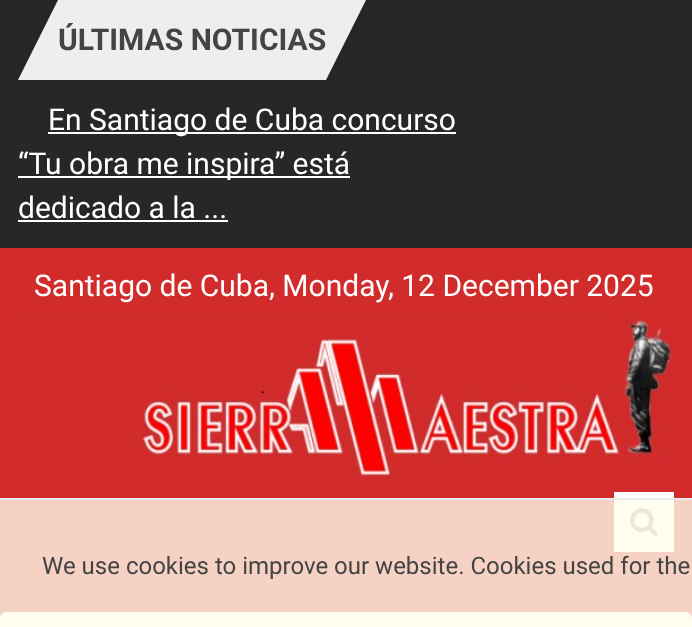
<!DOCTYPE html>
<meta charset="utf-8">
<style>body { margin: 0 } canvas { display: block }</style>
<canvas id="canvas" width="692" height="627"></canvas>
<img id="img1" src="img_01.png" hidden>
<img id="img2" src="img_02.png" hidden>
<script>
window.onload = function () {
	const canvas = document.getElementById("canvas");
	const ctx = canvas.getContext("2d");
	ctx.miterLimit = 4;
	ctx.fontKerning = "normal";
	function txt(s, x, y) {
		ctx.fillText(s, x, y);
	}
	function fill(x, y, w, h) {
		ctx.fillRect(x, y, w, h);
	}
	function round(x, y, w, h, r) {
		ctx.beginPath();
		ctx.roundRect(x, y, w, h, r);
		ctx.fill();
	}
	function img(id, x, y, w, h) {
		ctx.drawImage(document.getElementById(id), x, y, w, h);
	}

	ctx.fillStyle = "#272727";
	fill(0, 0, 692, 627);
	ctx.fillStyle = "#EEEEEE";
	fill(58, 0, 268, 80);
	ctx.beginPath();
	ctx.moveTo(58, 0);
	ctx.lineTo(58, 80);
	ctx.lineTo(18, 80);
	ctx.closePath();
	ctx.fill();
	ctx.beginPath();
	ctx.moveTo(326, 80);
	ctx.lineTo(326, 0);
	ctx.lineTo(366, 0);
	ctx.closePath();
	ctx.fill();
	ctx.fillStyle = "#FFFFFF";
	fill(48, 132, 408, 2);
	fill(18, 176, 332, 2);
	fill(18, 220, 210, 2);
	ctx.fillStyle = "#D22B2B";
	fill(0, 248, 692, 250);
	ctx.fillStyle = "#F6D2C5";
	fill(0, 500, 692, 118);
	img("img1", 18, 318, 656, 161);
	ctx.fillStyle = "#FFFFFF";
	fill(614, 492, 60, 6);
	ctx.fillStyle = "#FFFDEF";
	fill(614, 500, 60, 52);
	img("img2", 630, 508, 28, 29);
	round(0, 612, 692, 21, 6);
	ctx.fillStyle = "#EAEAEA";
	fill(0, 498, 692, 2);
	ctx.font = "bold 30px Roboto";
	ctx.fillStyle = "#444444";
	txt("ÚLTIMAS NOTICIAS", 58, 50);
	ctx.font = "30px Roboto";
	ctx.fillStyle = "#FFFFFF";
	txt("En Santiago de Cuba concurso", 48, 130);
	txt("“Tu obra me inspira” está", 18, 174);
	txt("dedicado a la ...", 18, 218);
	txt("Santiago de Cuba, Monday, 12 December 2025", 34, 296);
	ctx.font = "24px Roboto";
	ctx.fillStyle = "#444444";
	txt("We use cookies to improve our website. Cookies used for the", 42, 574);
};
</script>
